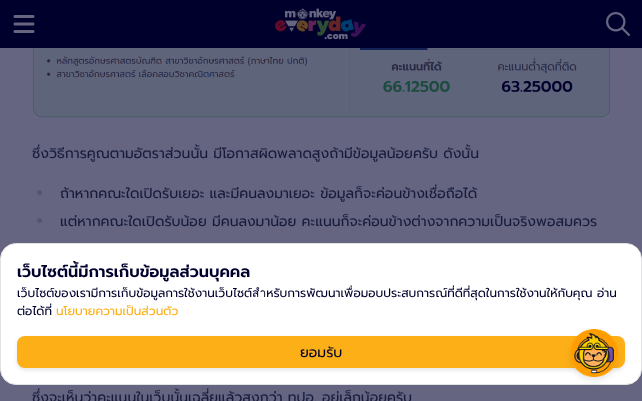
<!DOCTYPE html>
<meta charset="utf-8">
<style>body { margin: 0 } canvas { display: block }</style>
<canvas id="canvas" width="642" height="401"></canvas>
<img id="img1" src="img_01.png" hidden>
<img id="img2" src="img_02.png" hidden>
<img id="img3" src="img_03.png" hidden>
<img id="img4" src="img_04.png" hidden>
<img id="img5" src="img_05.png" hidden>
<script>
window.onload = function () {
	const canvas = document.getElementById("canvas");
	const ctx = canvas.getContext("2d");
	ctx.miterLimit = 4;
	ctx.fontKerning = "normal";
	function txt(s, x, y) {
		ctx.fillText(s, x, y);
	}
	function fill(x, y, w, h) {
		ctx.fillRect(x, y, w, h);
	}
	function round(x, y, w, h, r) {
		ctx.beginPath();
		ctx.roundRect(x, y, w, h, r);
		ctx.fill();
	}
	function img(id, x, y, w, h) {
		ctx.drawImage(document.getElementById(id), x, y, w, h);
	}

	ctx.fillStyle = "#656581";
	fill(0, 0, 642, 401);
	ctx.fillStyle = "#00002D";
	fill(0, 0, 642, 48);
	img("img1", 13, 15, 22, 18);
	img("img2", 275, 8, 92, 32);
	img("img3", 606, 12, 24, 24);
	img("img4", 33, 48, 577, 70);
	ctx.fillStyle = "#545573";
	ctx.beginPath();
	ctx.arc(39.5, 192.5, 2.5, 0, Math.PI * 2);
	ctx.fill();
	ctx.beginPath();
	ctx.arc(39.5, 220.5, 2.5, 0, Math.PI * 2);
	ctx.fill();
	ctx.fillStyle = "#FFFFFF";
	ctx.beginPath();
	ctx.roundRect(0.5, 243.5, 641, 141, 15.5);
	ctx.fill();
	ctx.strokeStyle = "#E3E3E5";
	ctx.stroke();
	ctx.fillStyle = "rgba(0, 0, 0, 0.1)";
	ctx.filter = "blur(2px)";
	ctx.beginPath();
	ctx.roundRect(17, 338, 608, 32, 8);
	ctx.fill();
	ctx.filter = "none";
	ctx.fillStyle = "#FCAF17";
	round(17, 336, 608, 32, 8);
	ctx.fillStyle = "rgba(0, 0, 0, 0.1)";
	ctx.filter = "blur(3px)";
	ctx.beginPath();
	ctx.roundRect(571, 334, 46, 46, 23);
	ctx.fill();
	ctx.filter = "none";
	img("img5", 570, 329, 48, 48);
	ctx.font = "14px Prompt";
	ctx.fillStyle = "#161A3B";
	txt("ซึ่งวิธีการคูณตามอัตราส่วนนั้น มีโอกาสผิดพลาดสูงถ้ามีข้อมูลน้อยครับ ดังนั้น", 32, 158);
	txt("ถ้าหากคณะใดเปิดรับเยอะ และมีคนลงมาเยอะ ข้อมูลก็จะค่อนข้างเชื่อถือได้", 60, 198);
	txt("แต่หากคณะใดเปิดรับน้อย มีคนลงมาน้อย คะแนนก็จะค่อนข้างต่างจากความเป็นจริงพอสมควร", 60, 226);
	txt("ซึ่งจะเห็นว่าคะแนนในเว็บนั้นเฉลี่ยแล้วสูงกว่า ทปอ. อยู่เล็กน้อยครับ", 32, 402);
	ctx.font = "600 16px Prompt";
	ctx.fillStyle = "#00002D";
	txt("เว็บไซต์นี้มีการเก็บข้อมูลส่วนบุคคล", 17, 277);
	ctx.font = "12px Prompt";
	txt("เว็บไซต์ของเรามีการเก็บข้อมูลการใช้งานเว็บไซต์สำหรับการพัฒนาเพื่อมอบประสบการณ์ที่ดีที่สุดในการใช้งานให้กับคุณ อ่าน", 17, 297);
	txt("ต่อได้ที่", 17, 315);
	ctx.fillStyle = "#FCAF17";
	txt("นโยบายความเป็นส่วนตัว", 56, 315);
	ctx.font = "14px Prompt";
	ctx.fillStyle = "#00002D";
	txt("ยอมรับ", 300, 357);
};
</script>
